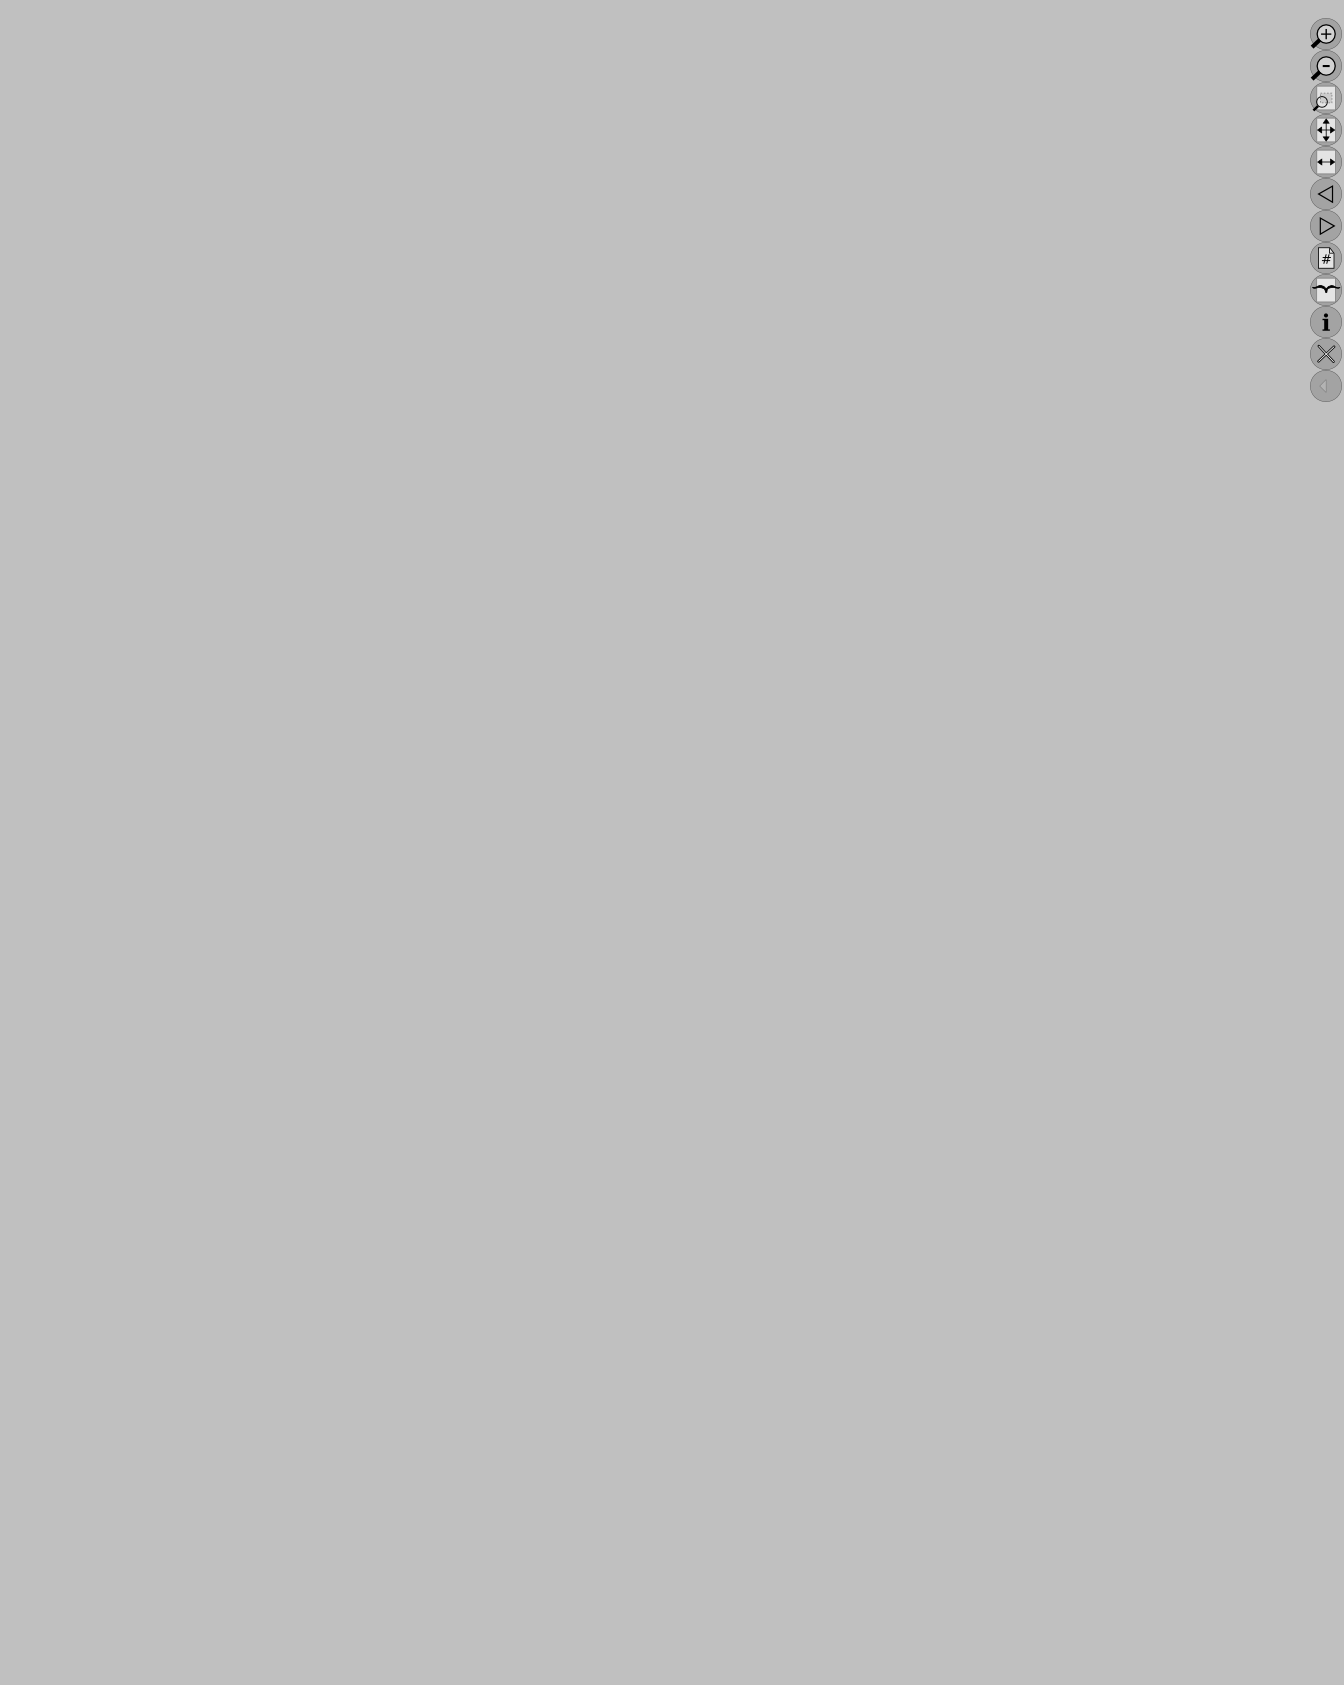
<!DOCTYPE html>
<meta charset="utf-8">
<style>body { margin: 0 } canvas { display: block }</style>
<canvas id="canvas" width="1344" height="1685"></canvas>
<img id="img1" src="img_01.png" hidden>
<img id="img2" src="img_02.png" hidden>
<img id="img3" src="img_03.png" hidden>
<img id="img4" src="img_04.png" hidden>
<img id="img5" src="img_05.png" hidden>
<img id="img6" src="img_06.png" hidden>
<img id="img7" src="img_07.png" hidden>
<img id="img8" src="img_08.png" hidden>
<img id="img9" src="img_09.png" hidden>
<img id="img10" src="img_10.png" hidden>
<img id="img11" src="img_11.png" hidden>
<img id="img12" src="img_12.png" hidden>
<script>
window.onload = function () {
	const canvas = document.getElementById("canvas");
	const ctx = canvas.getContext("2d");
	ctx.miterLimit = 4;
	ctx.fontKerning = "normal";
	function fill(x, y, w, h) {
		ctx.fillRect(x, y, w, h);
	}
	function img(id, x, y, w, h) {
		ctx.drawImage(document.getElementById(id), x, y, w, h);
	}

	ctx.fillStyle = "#C0C0C0";
	fill(0, 0, 1344, 1685);
	img("img1", 1310, 18, 32, 32);
	img("img2", 1310, 50, 32, 32);
	img("img3", 1310, 82, 32, 32);
	img("img4", 1310, 114, 32, 32);
	img("img5", 1310, 146, 32, 32);
	img("img6", 1310, 178, 32, 32);
	img("img7", 1310, 210, 32, 32);
	img("img8", 1310, 242, 32, 32);
	img("img9", 1310, 274, 32, 32);
	img("img10", 1310, 306, 32, 32);
	img("img11", 1310, 338, 32, 32);
	img("img12", 1310, 370, 32, 32);
};
</script>
